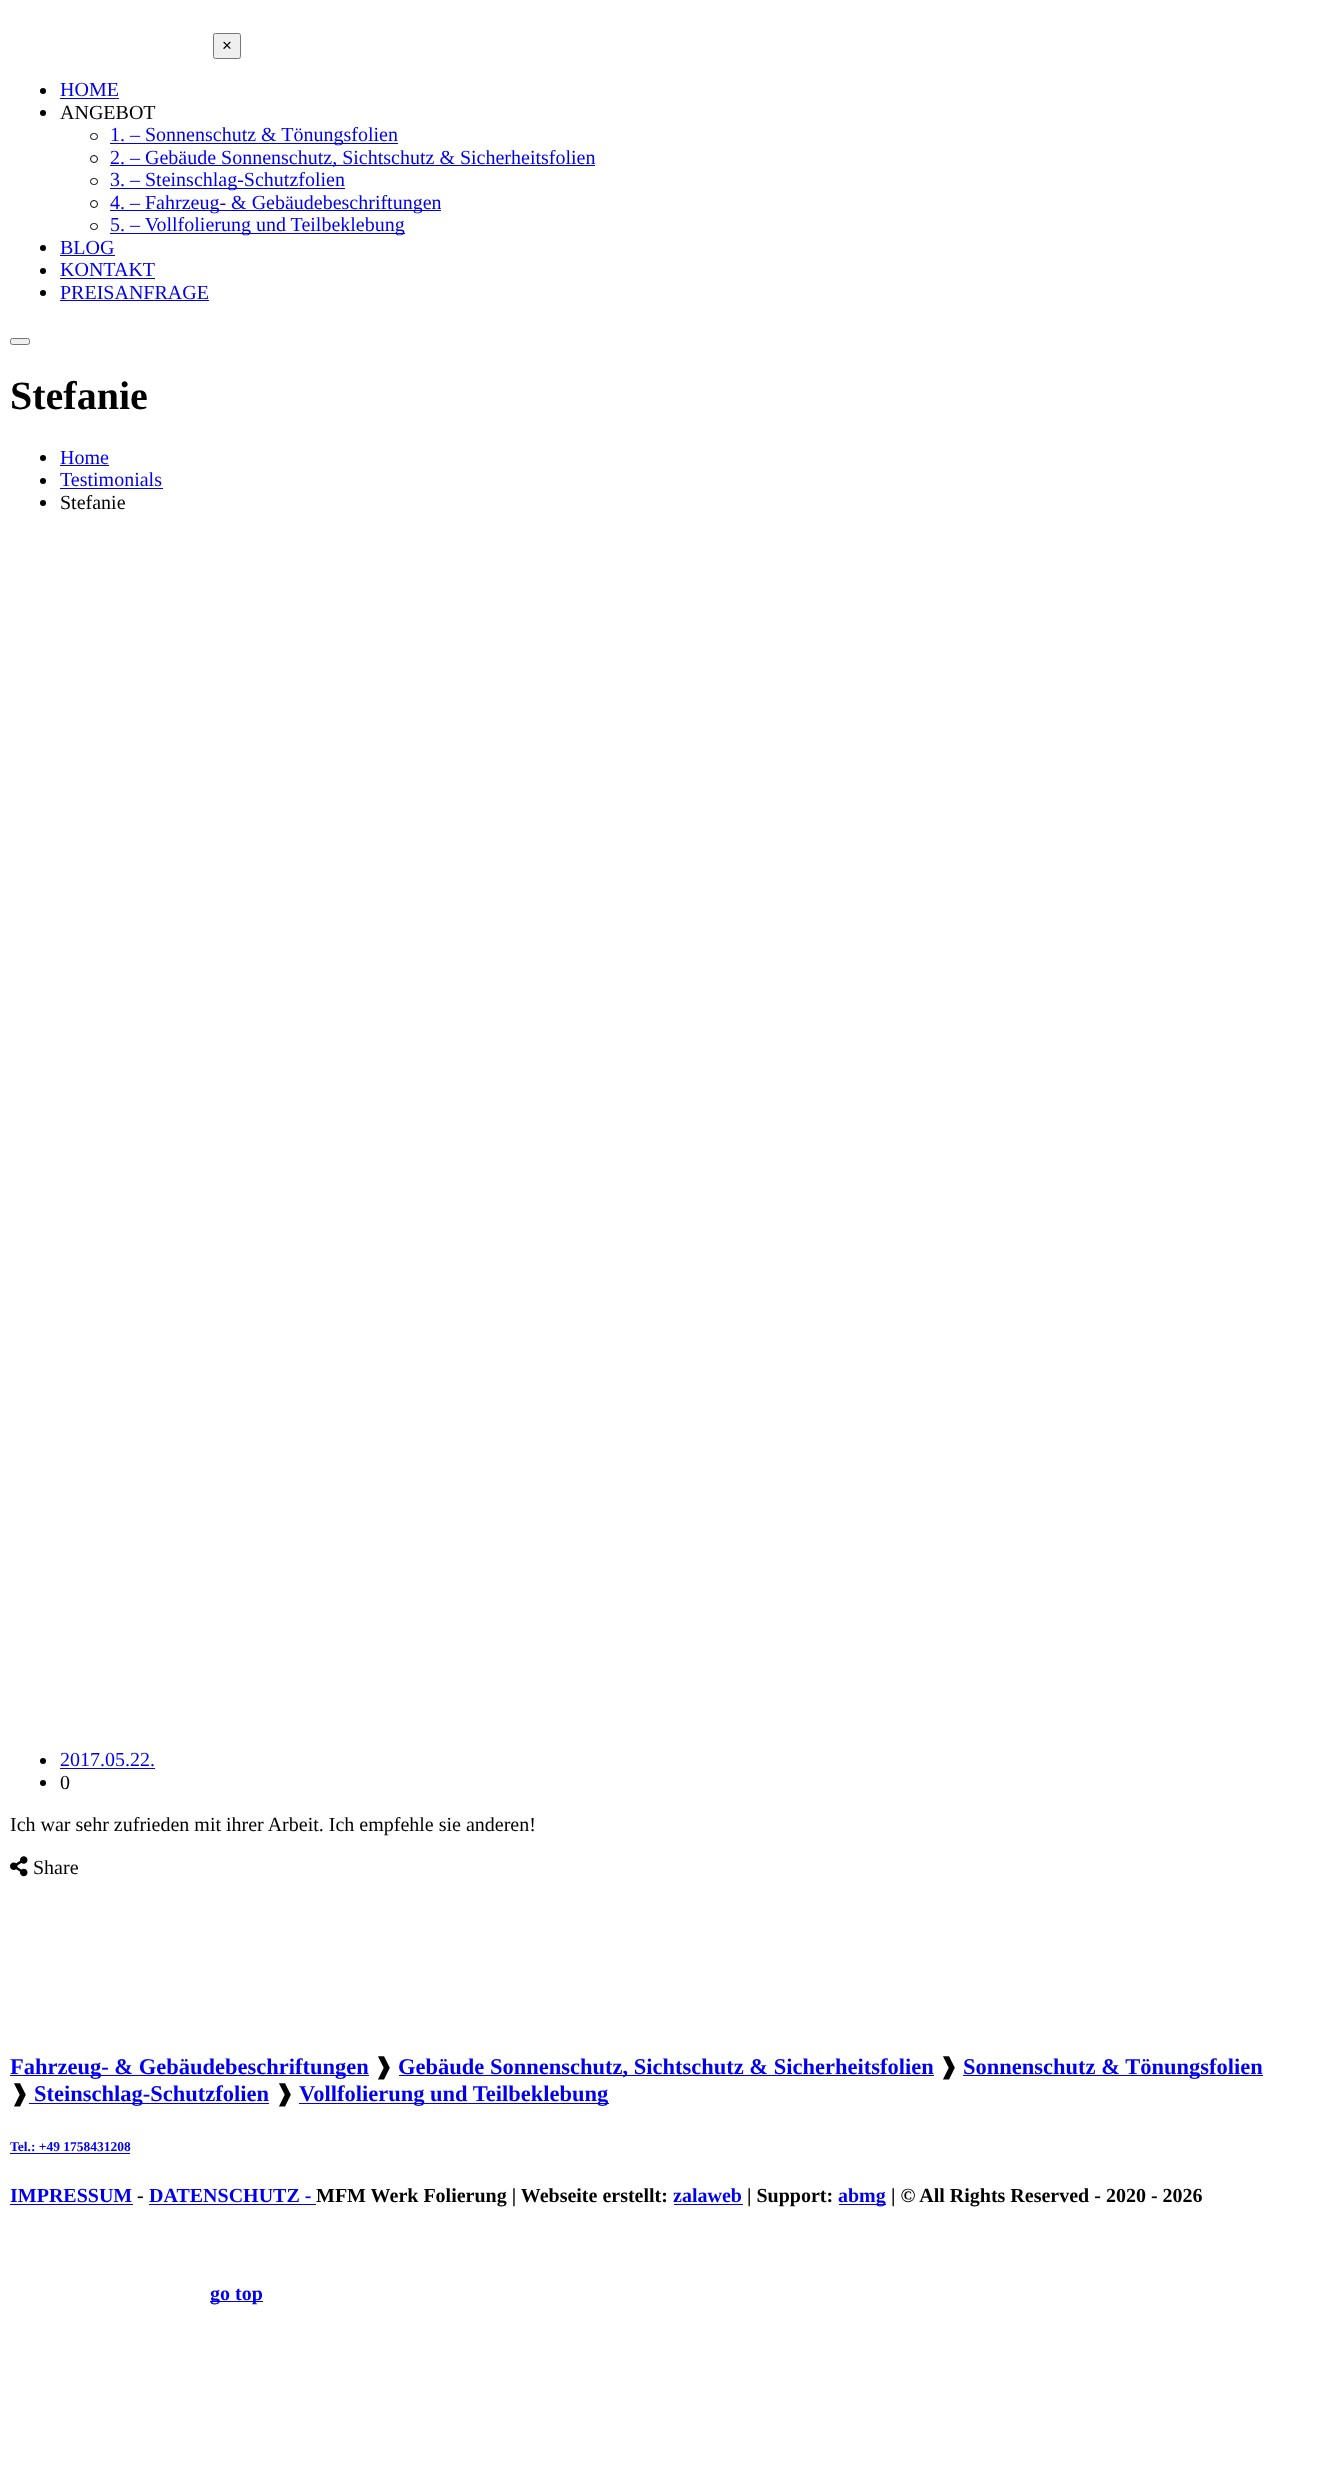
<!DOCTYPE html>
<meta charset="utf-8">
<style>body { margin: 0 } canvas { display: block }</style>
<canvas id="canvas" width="1338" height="2475"></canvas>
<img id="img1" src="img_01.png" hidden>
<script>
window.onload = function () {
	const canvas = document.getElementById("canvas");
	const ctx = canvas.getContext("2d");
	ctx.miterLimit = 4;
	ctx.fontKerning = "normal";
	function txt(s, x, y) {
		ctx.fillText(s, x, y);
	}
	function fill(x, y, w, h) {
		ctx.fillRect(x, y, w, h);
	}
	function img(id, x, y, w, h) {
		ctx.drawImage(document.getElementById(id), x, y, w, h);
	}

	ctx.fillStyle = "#FFFFFF";
	fill(0, 0, 1338, 2475);
	ctx.fillStyle = "#EFEFEF";
	ctx.beginPath();
	ctx.roundRect(213.5, 33.5, 27, 25, 2);
	ctx.fill();
	ctx.strokeStyle = "#767676";
	ctx.stroke();
	ctx.fillStyle = "#000000";
	ctx.beginPath();
	ctx.arc(43, 91, 3, 0, Math.PI * 2);
	ctx.fill();
	ctx.fillStyle = "#0000EE";
	fill(60, 98, 59, 1);
	ctx.fillStyle = "#000000";
	ctx.beginPath();
	ctx.arc(43, 113, 3, 0, Math.PI * 2);
	ctx.fill();
	ctx.beginPath();
	ctx.roundRect(90.5, 133.5, 7, 6, 3);
	ctx.strokeStyle = "#000000";
	ctx.stroke();
	ctx.fillStyle = "#0000EE";
	fill(110, 143, 288, 1);
	ctx.beginPath();
	ctx.arc(94, 159, 3.5, 0, Math.PI * 2);
	ctx.stroke();
	fill(110, 165, 485, 1);
	ctx.beginPath();
	ctx.roundRect(90.5, 178.5, 7, 6, 3);
	ctx.stroke();
	fill(110, 188, 235, 1);
	ctx.beginPath();
	ctx.arc(94, 204, 3.5, 0, Math.PI * 2);
	ctx.stroke();
	fill(110, 210, 331, 1);
	ctx.beginPath();
	ctx.roundRect(90.5, 223.5, 7, 6, 3);
	ctx.stroke();
	fill(110, 233, 295, 1);
	ctx.fillStyle = "#000000";
	ctx.beginPath();
	ctx.arc(43, 248, 3, 0, Math.PI * 2);
	ctx.fill();
	ctx.fillStyle = "#0000EE";
	fill(60, 255, 55, 1);
	ctx.fillStyle = "#000000";
	ctx.beginPath();
	ctx.arc(43, 271, 3, 0, Math.PI * 2);
	ctx.fill();
	ctx.fillStyle = "#0000EE";
	fill(60, 278, 95, 1);
	ctx.fillStyle = "#000000";
	ctx.beginPath();
	ctx.arc(43, 293, 3, 0, Math.PI * 2);
	ctx.fill();
	ctx.fillStyle = "#0000EE";
	fill(60, 300, 149, 1);
	ctx.fillStyle = "#EFEFEF";
	ctx.beginPath();
	ctx.roundRect(10.5, 338.5, 19, 6, 2);
	ctx.fill();
	ctx.strokeStyle = "#767676";
	ctx.stroke();
	ctx.fillStyle = "#000000";
	ctx.beginPath();
	ctx.arc(43, 458, 3, 0, Math.PI * 2);
	ctx.fill();
	ctx.fillStyle = "#0000EE";
	fill(60, 465, 49, 1);
	ctx.fillStyle = "#000000";
	ctx.beginPath();
	ctx.arc(43, 481, 3, 0, Math.PI * 2);
	ctx.fill();
	ctx.fillStyle = "#0000EE";
	fill(60, 488, 103, 1);
	ctx.fillStyle = "#000000";
	ctx.beginPath();
	ctx.arc(43, 503, 3, 0, Math.PI * 2);
	ctx.fill();
	ctx.beginPath();
	ctx.arc(43, 1761, 3, 0, Math.PI * 2);
	ctx.fill();
	ctx.fillStyle = "#0000EE";
	fill(60, 1768, 95, 1);
	ctx.fillStyle = "#000000";
	ctx.beginPath();
	ctx.arc(43, 1783, 3, 0, Math.PI * 2);
	ctx.fill();
	img("img1", 10, 1856, 18, 21);
	ctx.fillStyle = "#0000EE";
	fill(10, 2075, 359, 1);
	fill(399, 2075, 535, 1);
	fill(963, 2075, 300, 1);
	fill(299, 2103, 310, 1);
	fill(29, 2103, 240, 1);
	fill(10, 2153, 120, 1);
	fill(10, 2204, 123, 1);
	fill(149, 2204, 167, 1);
	fill(674, 2204, 69, 1);
	fill(839, 2204, 47, 1);
	fill(210, 2301, 53, 1);
	ctx.font = "17px Liberation Sans";
	ctx.fillStyle = "#000000";
	txt("×", 222, 51);
	ctx.font = "20px Liberation Serif";
	ctx.fillStyle = "#0000EE";
	txt("HOME", 60, 96);
	ctx.fillStyle = "#000000";
	txt("ANGEBOT", 60, 119);
	ctx.fillStyle = "#0000EE";
	txt("1. – Sonnenschutz & Tönungsfolien", 110, 141);
	txt("2. – Gebäude Sonnenschutz, Sichtschutz & Sicherheitsfolien", 110, 164);
	txt("3. – Steinschlag-Schutzfolien", 110, 186);
	txt("4. – Fahrzeug- & Gebäudebeschriftungen", 110, 209);
	txt("5. – Vollfolierung und Teilbeklebung", 110, 231);
	txt("BLOG", 60, 254);
	txt("KONTAKT", 60, 276);
	txt("PREISANFRAGE", 60, 299);
	ctx.font = "bold 40px Liberation Serif";
	ctx.fillStyle = "#000000";
	txt("Stefanie", 10, 409);
	ctx.font = "20px Liberation Serif";
	ctx.fillStyle = "#0000EE";
	txt("Home", 60, 464);
	txt("Testimonials", 60, 486);
	ctx.fillStyle = "#000000";
	txt("Stefanie", 60, 509);
	ctx.fillStyle = "#0000EE";
	txt("2017.05.22.", 60, 1766);
	ctx.fillStyle = "#000000";
	txt("0", 60, 1789);
	txt("Ich war sehr zufrieden mit ihrer Arbeit. Ich empfehle sie anderen!", 10, 1831);
	txt("Share", 33, 1874);
	ctx.font = "bold 22.5px Liberation Serif";
	ctx.fillStyle = "#0000EE";
	txt("Fahrzeug- & Gebäudebeschriftungen", 10, 2074);
	ctx.font = "bold 22.5px DejaVu Sans";
	ctx.fillStyle = "#000000";
	txt("❱", 374, 2074);
	ctx.font = "bold 22.5px Liberation Serif";
	ctx.fillStyle = "#0000EE";
	txt("Gebäude Sonnenschutz, Sichtschutz & Sicherheitsfolien", 398, 2074);
	ctx.font = "bold 22.5px DejaVu Sans";
	ctx.fillStyle = "#000000";
	txt("❱", 939, 2074);
	ctx.font = "bold 22.5px Liberation Serif";
	ctx.fillStyle = "#0000EE";
	txt("Sonnenschutz & Tönungsfolien", 963, 2074);
	ctx.font = "bold 22.5px DejaVu Sans";
	ctx.fillStyle = "#000000";
	txt("❱", 10, 2101);
	ctx.font = "bold 22.5px Liberation Serif";
	ctx.fillStyle = "#0000EE";
	txt("Steinschlag-Schutzfolien", 34, 2101);
	ctx.font = "bold 22.5px DejaVu Sans";
	ctx.fillStyle = "#000000";
	txt("❱", 275, 2101);
	ctx.font = "bold 22.5px Liberation Serif";
	ctx.fillStyle = "#0000EE";
	txt("Vollfolierung und Teilbeklebung", 299, 2101);
	ctx.font = "bold 13.5px Liberation Serif";
	txt("Tel.: +49 1758431208", 10, 2151);
	ctx.font = "bold 20px Liberation Serif";
	txt("IMPRESSUM", 10, 2202);
	ctx.fillStyle = "#000000";
	txt("-", 137, 2202);
	ctx.fillStyle = "#0000EE";
	txt("DATENSCHUTZ -", 149, 2202);
	ctx.fillStyle = "#000000";
	txt("MFM Werk Folierung | Webseite erstellt:", 316, 2202);
	ctx.fillStyle = "#0000EE";
	txt("zalaweb", 673, 2202);
	ctx.fillStyle = "#000000";
	txt("| Support:", 747, 2202);
	ctx.fillStyle = "#0000EE";
	txt("abmg", 838, 2202);
	ctx.fillStyle = "#000000";
	txt("| © All Rights Reserved - 2020 - 2026", 891, 2202);
	ctx.fillStyle = "#0000EE";
	txt("go top", 210, 2300);
};
</script>
